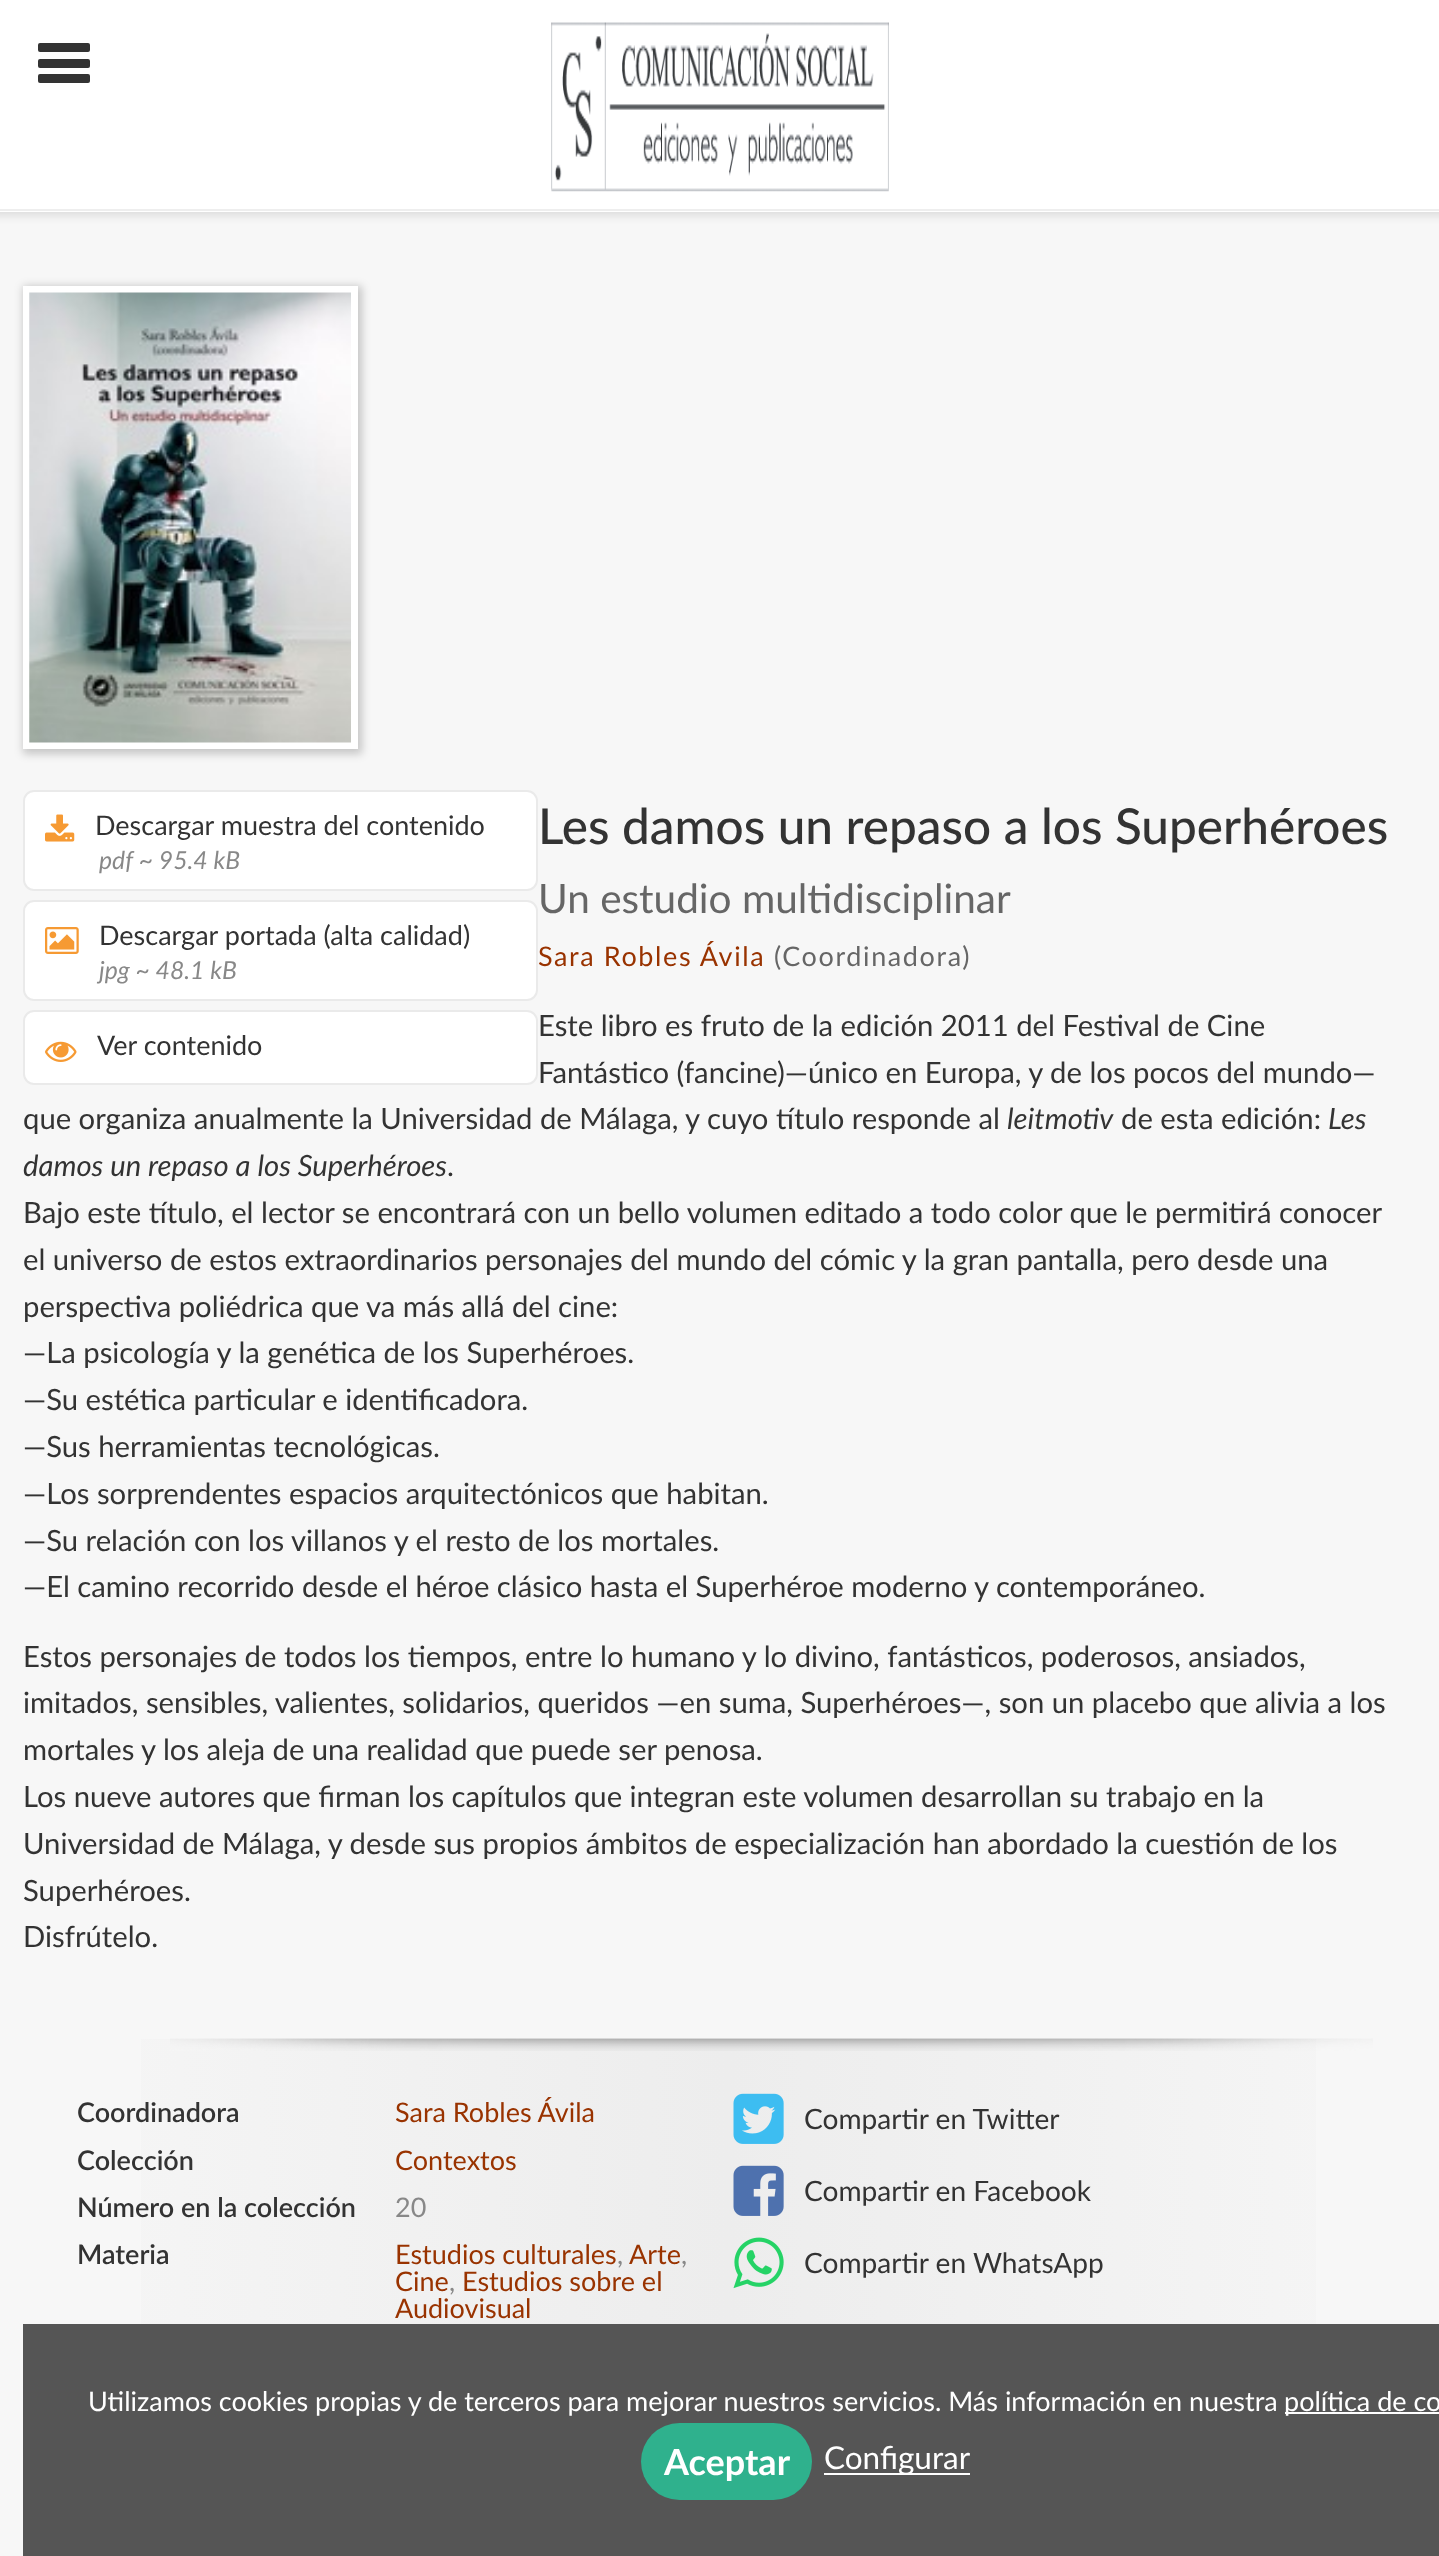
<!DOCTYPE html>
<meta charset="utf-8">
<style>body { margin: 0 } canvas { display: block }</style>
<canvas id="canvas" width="1439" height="2556"></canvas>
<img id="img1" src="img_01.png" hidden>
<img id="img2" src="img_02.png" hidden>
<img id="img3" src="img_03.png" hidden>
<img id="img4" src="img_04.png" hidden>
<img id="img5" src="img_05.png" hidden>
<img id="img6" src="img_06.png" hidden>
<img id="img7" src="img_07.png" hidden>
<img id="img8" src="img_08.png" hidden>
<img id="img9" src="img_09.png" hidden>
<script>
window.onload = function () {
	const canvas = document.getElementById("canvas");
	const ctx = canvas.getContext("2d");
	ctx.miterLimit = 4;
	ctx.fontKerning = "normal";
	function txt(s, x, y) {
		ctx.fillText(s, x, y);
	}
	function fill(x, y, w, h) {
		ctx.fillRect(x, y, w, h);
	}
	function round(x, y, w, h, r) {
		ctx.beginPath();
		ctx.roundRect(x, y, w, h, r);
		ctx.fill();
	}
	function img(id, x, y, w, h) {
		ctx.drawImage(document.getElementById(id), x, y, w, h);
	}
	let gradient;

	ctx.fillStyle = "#F7F7F7";
	fill(0, 0, 1439, 2556);
	ctx.fillStyle = "rgba(0, 0, 0, 0.1)";
	ctx.filter = "blur(4.5px)";
	ctx.beginPath();
	ctx.rect(-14, 5, 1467, 211);
	ctx.fill();
	ctx.filter = "none";
	ctx.fillStyle = "#FFFFFF";
	fill(0, 0, 1439, 212);
	ctx.fillStyle = "#EEEEEE";
	fill(0, 209, 1439, 2);
	ctx.fillStyle = "#333333";
	round(38, 43, 52, 9, 2);
	round(38, 59, 52, 9, 2);
	round(38, 74, 52, 9, 2);
	img("img1", 551, 22, 338, 170);
	gradient = ctx.createLinearGradient(23, 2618, 1433, 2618);
	gradient.addColorStop(0, "#F6F6F6");
	gradient.addColorStop(0.5, "#EDEDED");
	gradient.addColorStop(1, "#F6F6F6");
	ctx.fillStyle = gradient;
	fill(141, 2039, 1175, 285);
	img("img2", 170, 2038, 1203, 13);
	img("img3", 733, 2093, 51, 51);
	img("img4", 733, 2165, 51, 51);
	img("img5", 733, 2237, 51, 52);
	ctx.fillStyle = "rgba(0, 0, 0, 0.2)";
	ctx.filter = "blur(4.5px)";
	ctx.beginPath();
	ctx.rect(23, 286, 339, 468);
	ctx.fill();
	ctx.filter = "none";
	ctx.fillStyle = "#FFFFFF";
	fill(23, 286, 335, 463);
	img("img6", 29, 292, 322, 451);
	ctx.beginPath();
	ctx.roundRect(24, 791, 513, 99, 10);
	ctx.fill();
	ctx.strokeStyle = "#EAEAEA";
	ctx.lineWidth = 2;
	ctx.stroke();
	img("img7", 45, 814, 30, 28);
	ctx.beginPath();
	ctx.roundRect(24, 901, 513, 99, 10);
	ctx.fill();
	ctx.stroke();
	img("img8", 45, 927, 34, 27);
	ctx.beginPath();
	ctx.roundRect(24, 1011, 513, 73, 10);
	ctx.fill();
	ctx.stroke();
	img("img9", 45, 1041, 32, 21);
	ctx.fillStyle = "#555555";
	fill(23, 2324, 1416, 232);
	ctx.fillStyle = "#FFFFFF";
	fill(1285, 2412, 154, 2);
	ctx.fillStyle = "#2FB18D";
	round(641, 2423, 171, 77, 38.5);
	ctx.fillStyle = "#FFFFFF";
	fill(824, 2473, 146, 2);
	ctx.font = "500 49.5px Lato";
	ctx.fillStyle = "#333333";
	txt("Les damos un repaso a los Superhéroes", 538, 844);
	ctx.font = "40.5px Lato";
	ctx.fillStyle = "#666666";
	txt("Un estudio multidisciplinar", 538, 913);
	ctx.letterSpacing = "1.6px";
	ctx.font = "27px Lato";
	ctx.fillStyle = "#993300";
	txt("Sara Robles Ávila", 538, 966);
	ctx.fillStyle = "#666666";
	txt("(Coordinadora)", 774, 966);
	ctx.letterSpacing = "0px";
	ctx.font = "29.25px Lato";
	ctx.fillStyle = "#333333";
	txt("Este libro es fruto de la edición 2011 del Festival de Cine", 538, 1036);
	txt("Fantástico (fancine)—único en Europa, y de los pocos del mundo—", 538, 1083);
	txt("que organiza anualmente la Universidad de Málaga, y cuyo título responde al", 23, 1129);
	ctx.font = "italic 29.25px Lato";
	txt("leitmotiv", 1007, 1129);
	ctx.font = "29.25px Lato";
	txt("de esta edición:", 1121, 1129);
	ctx.font = "italic 29.25px Lato";
	txt("Les", 1328, 1129);
	txt("damos un repaso a los Superhéroes", 23, 1176);
	ctx.font = "29.25px Lato";
	txt(".", 447, 1176);
	txt("Bajo este título, el lector se encontrará con un bello volumen editado a todo color que le permitirá conocer", 23, 1223);
	txt("el universo de estos extraordinarios personajes del mundo del cómic y la gran pantalla, pero desde una", 23, 1270);
	txt("perspectiva poliédrica que va más allá del cine:", 23, 1317);
	txt("—La psicología y la genética de los Superhéroes.", 23, 1363);
	txt("—Su estética particular e identificadora.", 23, 1410);
	txt("—Sus herramientas tecnológicas.", 23, 1457);
	txt("—Los sorprendentes espacios arquitectónicos que habitan.", 23, 1504);
	txt("—Su relación con los villanos y el resto de los mortales.", 23, 1551);
	txt("—El camino recorrido desde el héroe clásico hasta el Superhéroe moderno y contemporáneo.", 23, 1597);
	txt("Estos personajes de todos los tiempos, entre lo humano y lo divino, fantásticos, poderosos, ansiados,", 23, 1667);
	txt("imitados, sensibles, valientes, solidarios, queridos —en suma, Superhéroes—, son un placebo que alivia a los", 23, 1713);
	txt("mortales y los aleja de una realidad que puede ser penosa.", 23, 1760);
	txt("Los nueve autores que firman los capítulos que integran este volumen desarrollan su trabajo en la", 23, 1807);
	txt("Universidad de Málaga, y desde sus propios ámbitos de especialización han abordado la cuestión de los", 23, 1854);
	txt("Superhéroes.", 23, 1901);
	txt("Disfrútelo.", 23, 1947);
	ctx.font = "600 27px Lato";
	txt("Coordinadora", 77, 2122);
	ctx.font = "27px Lato";
	ctx.fillStyle = "#993300";
	txt("Sara Robles Ávila", 395, 2122);
	ctx.font = "600 27px Lato";
	ctx.fillStyle = "#333333";
	txt("Colección", 77, 2170);
	ctx.font = "27px Lato";
	ctx.fillStyle = "#993300";
	txt("Contextos", 395, 2170);
	ctx.font = "600 27px Lato";
	ctx.fillStyle = "#333333";
	txt("Número en la colección", 77, 2217);
	ctx.font = "27px Lato";
	ctx.fillStyle = "#888888";
	txt("20", 395, 2217);
	ctx.font = "600 27px Lato";
	ctx.fillStyle = "#333333";
	txt("Materia", 77, 2264);
	ctx.font = "27px Lato";
	ctx.fillStyle = "#993300";
	txt("Estudios culturales", 395, 2264);
	ctx.fillStyle = "#888888";
	txt(",", 617, 2264);
	ctx.fillStyle = "#993300";
	txt("Arte", 629, 2264);
	ctx.fillStyle = "#888888";
	txt(",", 681, 2264);
	ctx.fillStyle = "#993300";
	txt("Cine", 395, 2291);
	ctx.fillStyle = "#888888";
	txt(",", 449, 2291);
	ctx.fillStyle = "#993300";
	txt("Estudios sobre el", 462, 2291);
	txt("Audiovisual", 395, 2318);
	ctx.font = "28.1px Lato";
	ctx.fillStyle = "#333333";
	txt("Compartir en Twitter", 804, 2129);
	txt("Compartir en Facebook", 804, 2201);
	txt("Compartir en WhatsApp", 804, 2273);
	ctx.font = "27px Lato";
	txt("Descargar muestra del contenido", 95, 835);
	ctx.font = "italic 24.75px Lato";
	ctx.fillStyle = "#888888";
	txt("pdf ~ 95.4 kB", 99, 869);
	ctx.font = "27px Lato";
	ctx.fillStyle = "#333333";
	txt("Descargar portada (alta calidad)", 99, 945);
	ctx.font = "italic 24.75px Lato";
	ctx.fillStyle = "#888888";
	txt("jpg ~ 48.1 kB", 99, 979);
	ctx.font = "27px Lato";
	ctx.fillStyle = "#333333";
	txt("Ver contenido", 97, 1055);
	ctx.fillStyle = "#FFFFFF";
	txt("Utilizamos cookies propias y de terceros para mejorar nuestros servicios. Más información en nuestra", 88, 2411);
	txt("política de co", 1284, 2411);
	ctx.font = "bold 36px Lato";
	txt("Aceptar", 664, 2475);
	ctx.font = "31.5px Lato";
	txt("Configurar", 824, 2469);
};
</script>
